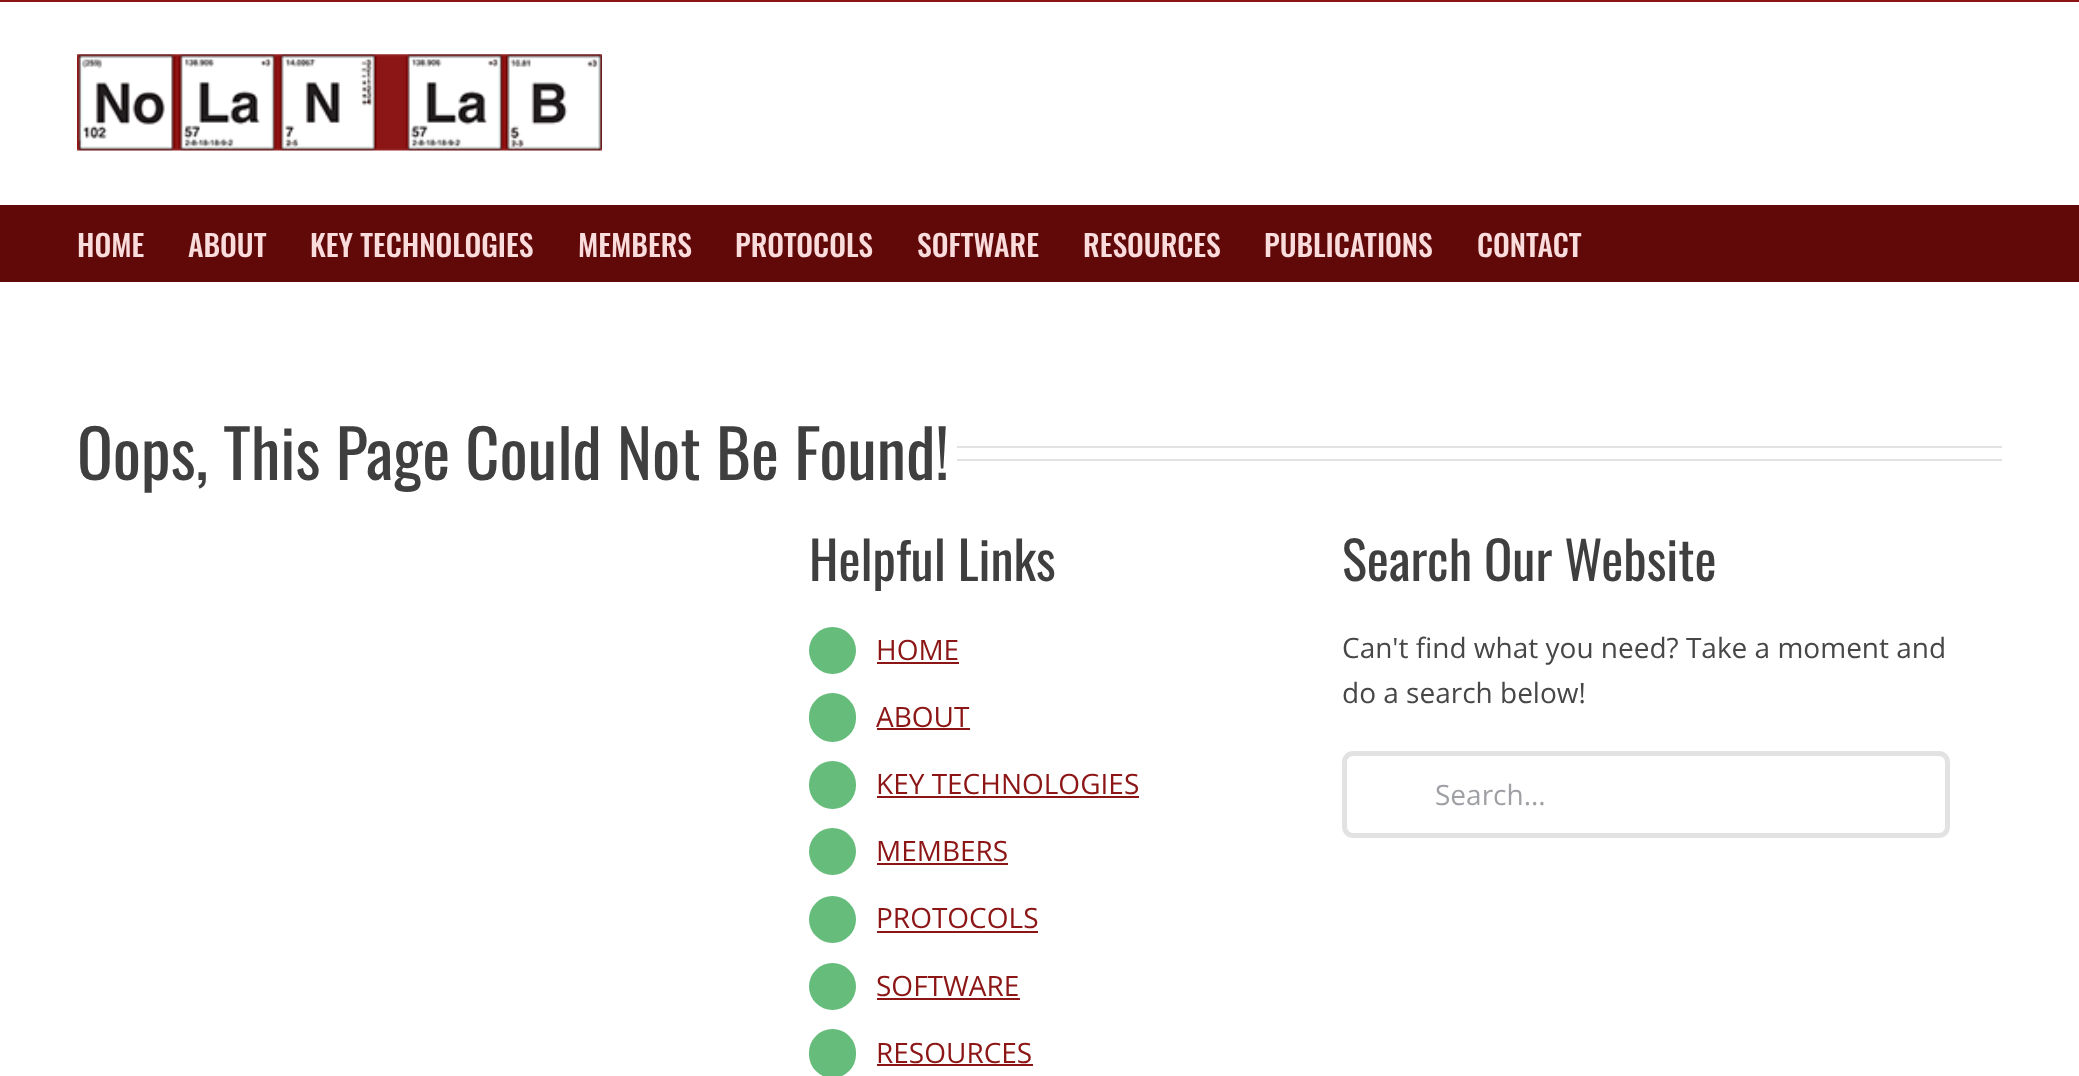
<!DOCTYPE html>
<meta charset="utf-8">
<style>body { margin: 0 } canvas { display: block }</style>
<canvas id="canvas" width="2079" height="1076"></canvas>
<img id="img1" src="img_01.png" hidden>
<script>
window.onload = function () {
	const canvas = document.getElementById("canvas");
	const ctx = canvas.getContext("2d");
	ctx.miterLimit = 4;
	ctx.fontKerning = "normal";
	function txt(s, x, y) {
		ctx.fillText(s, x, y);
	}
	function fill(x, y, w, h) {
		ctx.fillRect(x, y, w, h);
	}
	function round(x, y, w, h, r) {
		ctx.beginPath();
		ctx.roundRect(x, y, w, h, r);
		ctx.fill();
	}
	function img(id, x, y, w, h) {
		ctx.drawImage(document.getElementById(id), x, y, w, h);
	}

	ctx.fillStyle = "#FFFFFF";
	fill(0, 0, 2079, 1076);
	ctx.fillStyle = "#8C1515";
	fill(0, 0, 2079, 2);
	img("img1", 77, 54, 525, 97);
	ctx.fillStyle = "#610909";
	fill(0, 205, 2079, 77);
	ctx.fillStyle = "#E2E2E2";
	fill(957, 446, 1045, 2);
	fill(957, 459, 1045, 2);
	ctx.fillStyle = "#65BC7B";
	ctx.beginPath();
	ctx.arc(832.5, 650.5, 23.5, 0, Math.PI * 2);
	ctx.fill();
	ctx.fillStyle = "#8C1515";
	fill(877, 662, 82, 2);
	ctx.fillStyle = "#65BC7B";
	round(809, 693, 47, 49, 23.5);
	ctx.fillStyle = "#8C1515";
	fill(877, 728, 93, 2);
	ctx.fillStyle = "#65BC7B";
	round(809, 761, 47, 48, 23.5);
	ctx.fillStyle = "#8C1515";
	fill(877, 796, 262, 2);
	ctx.fillStyle = "#65BC7B";
	ctx.beginPath();
	ctx.arc(832.5, 851.5, 23.5, 0, Math.PI * 2);
	ctx.fill();
	ctx.fillStyle = "#8C1515";
	fill(877, 863, 131, 2);
	ctx.fillStyle = "#65BC7B";
	ctx.beginPath();
	ctx.arc(832.5, 919.5, 23.5, 0, Math.PI * 2);
	ctx.fill();
	ctx.fillStyle = "#8C1515";
	fill(877, 931, 161, 2);
	ctx.fillStyle = "#65BC7B";
	ctx.beginPath();
	ctx.arc(832.5, 986.5, 23.5, 0, Math.PI * 2);
	ctx.fill();
	ctx.fillStyle = "#8C1515";
	fill(877, 998, 143, 2);
	ctx.fillStyle = "#65BC7B";
	round(809, 1029, 47, 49, 23.5);
	ctx.fillStyle = "#8C1515";
	fill(877, 1064, 156, 2);
	ctx.beginPath();
	ctx.roundRect(1344.5, 753.5, 603, 82, 8.5);
	ctx.strokeStyle = "#E2E2E2";
	ctx.lineWidth = 5;
	ctx.stroke();
	ctx.font = "500 29.75px Oswald";
	ctx.fillStyle = "#FADCDC";
	txt("HOME", 77, 257);
	txt("ABOUT", 188, 257);
	txt("KEY TECHNOLOGIES", 310, 257);
	txt("MEMBERS", 578, 257);
	txt("PROTOCOLS", 735, 257);
	txt("SOFTWARE", 917, 257);
	txt("RESOURCES", 1083, 257);
	txt("PUBLICATIONS", 1264, 257);
	txt("CONTACT", 1477, 257);
	ctx.font = "66.5px Oswald";
	ctx.fillStyle = "#3F3F3F";
	txt("Oops, This Page Could Not Be Found!", 77, 480);
	ctx.font = "52.5px Oswald";
	txt("Helpful Links", 809, 581);
	ctx.font = "28px Open Sans";
	ctx.fillStyle = "#8C1515";
	txt("HOME", 876, 660);
	txt("ABOUT", 876, 727);
	txt("KEY TECHNOLOGIES", 876, 794);
	txt("MEMBERS", 876, 861);
	txt("PROTOCOLS", 876, 928);
	txt("SOFTWARE", 876, 996);
	txt("RESOURCES", 876, 1063);
	ctx.font = "52.5px Oswald";
	ctx.fillStyle = "#3F3F3F";
	txt("Search Our Website", 1342, 581);
	ctx.font = "28px Open Sans";
	ctx.fillStyle = "#474747";
	txt("Can't find what you need? Take a moment and", 1342, 658);
	txt("do a search below!", 1342, 703);
	ctx.fillStyle = "#9EA0A4";
	txt("Search...", 1435, 805);
};
</script>
